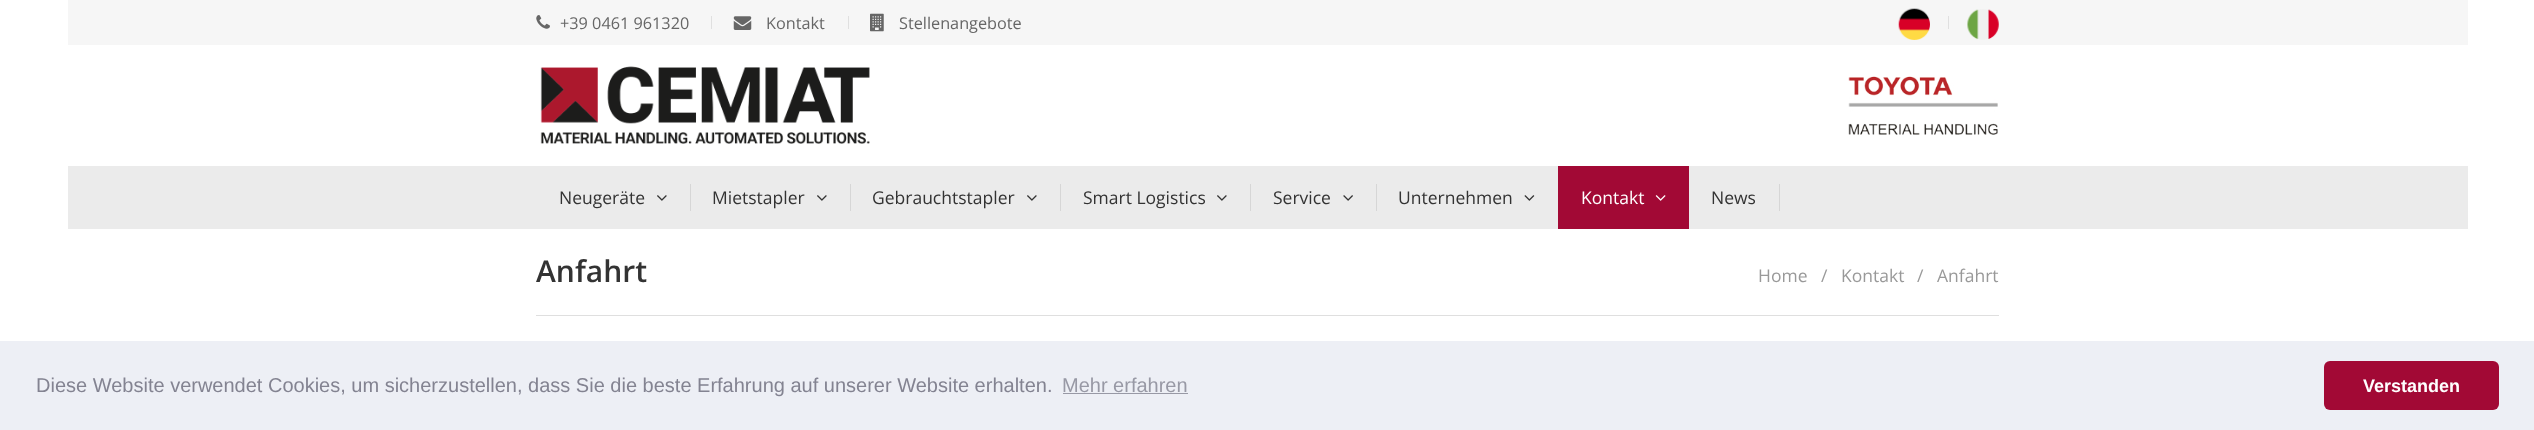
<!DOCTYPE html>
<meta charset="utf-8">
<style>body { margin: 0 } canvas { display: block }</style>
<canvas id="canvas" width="2534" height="430"></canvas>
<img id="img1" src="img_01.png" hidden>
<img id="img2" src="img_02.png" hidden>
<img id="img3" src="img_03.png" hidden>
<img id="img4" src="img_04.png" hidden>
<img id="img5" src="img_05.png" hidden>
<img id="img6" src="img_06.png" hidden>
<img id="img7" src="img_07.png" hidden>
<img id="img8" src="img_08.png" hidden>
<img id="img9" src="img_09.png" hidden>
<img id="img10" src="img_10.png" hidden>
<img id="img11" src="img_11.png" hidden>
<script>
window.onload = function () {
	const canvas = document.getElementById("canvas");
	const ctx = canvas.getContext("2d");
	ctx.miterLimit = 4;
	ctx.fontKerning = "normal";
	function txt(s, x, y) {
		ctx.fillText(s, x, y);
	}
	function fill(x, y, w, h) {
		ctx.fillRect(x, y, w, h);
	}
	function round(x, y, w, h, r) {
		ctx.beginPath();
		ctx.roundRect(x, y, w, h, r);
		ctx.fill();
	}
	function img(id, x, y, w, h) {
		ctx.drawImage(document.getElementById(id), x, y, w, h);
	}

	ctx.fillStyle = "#FFFFFF";
	fill(0, 0, 2534, 430);
	ctx.fillStyle = "#F6F6F6";
	fill(68, 0, 2400, 45);
	img("img1", 536, 15, 14, 14);
	ctx.fillStyle = "#E0E0E0";
	fill(711, 16, 1, 13);
	img("img2", 733, 16, 19, 14);
	fill(848, 16, 1, 13);
	img("img3", 870, 13, 14, 19);
	img("img4", 1898, 8, 32, 32);
	fill(1948, 16, 1, 13);
	img("img5", 1967, 9, 32, 31);
	img("img6", 540, 66, 330, 78);
	img("img7", 1848, 76, 150, 59);
	ctx.fillStyle = "#EBEBEB";
	fill(68, 166, 2400, 63);
	img("img8", 657, 195, 10, 6);
	ctx.fillStyle = "#D6D6D6";
	fill(690, 184, 1, 27);
	img("img8", 817, 195, 10, 6);
	fill(850, 184, 1, 27);
	img("img8", 1027, 195, 10, 6);
	fill(1060, 184, 1, 27);
	img("img8", 1217, 195, 10, 6);
	fill(1250, 184, 1, 27);
	img("img9", 1343, 195, 10, 6);
	fill(1376, 184, 1, 27);
	img("img10", 1524, 195, 11, 6);
	ctx.fillStyle = "#A20935";
	fill(1558, 166, 131, 63);
	img("img11", 1655, 195, 11, 6);
	ctx.fillStyle = "#D6D6D6";
	fill(1779, 184, 1, 27);
	ctx.fillStyle = "#DFDFDF";
	fill(536, 315, 1463, 1);
	ctx.fillStyle = "#EDEFF5";
	fill(0, 341, 2534, 89);
	ctx.fillStyle = "#9899A5";
	fill(1063, 393, 125, 1);
	ctx.fillStyle = "#A20935";
	round(2324, 361, 175, 49, 6);
	ctx.font = "16.25px Open Sans";
	ctx.fillStyle = "#666666";
	txt("+39 0461 961320", 560, 29);
	txt("Kontakt", 766, 29);
	txt("Stellenangebote", 899, 29);
	ctx.font = "17.5px Open Sans";
	ctx.fillStyle = "#333333";
	txt("Neugeräte", 559, 204);
	txt("Mietstapler", 712, 204);
	txt("Gebrauchtstapler", 872, 204);
	txt("Smart Logistics", 1083, 204);
	txt("Service", 1273, 204);
	txt("Unternehmen", 1398, 204);
	ctx.fillStyle = "#FFFFFF";
	txt("Kontakt", 1581, 204);
	ctx.fillStyle = "#333333";
	txt("News", 1711, 204);
	ctx.font = "600 30px Open Sans";
	txt("Anfahrt", 536, 282);
	ctx.font = "17.5px Open Sans";
	ctx.fillStyle = "#999999";
	txt("Home", 1758, 282);
	txt("/", 1821, 282);
	txt("Kontakt", 1841, 282);
	txt("/", 1917, 282);
	txt("Anfahrt", 1937, 282);
	ctx.font = "20px Liberation Sans";
	ctx.fillStyle = "#838391";
	txt("Diese Website verwendet Cookies, um sicherzustellen, dass Sie die beste Erfahrung auf unserer Website erhalten.", 36, 392);
	ctx.fillStyle = "#9899A5";
	txt("Mehr erfahren", 1062, 392);
	ctx.font = "bold 18px Liberation Sans";
	ctx.fillStyle = "#FFFFFF";
	txt("Verstanden", 2363, 392);
};
</script>
